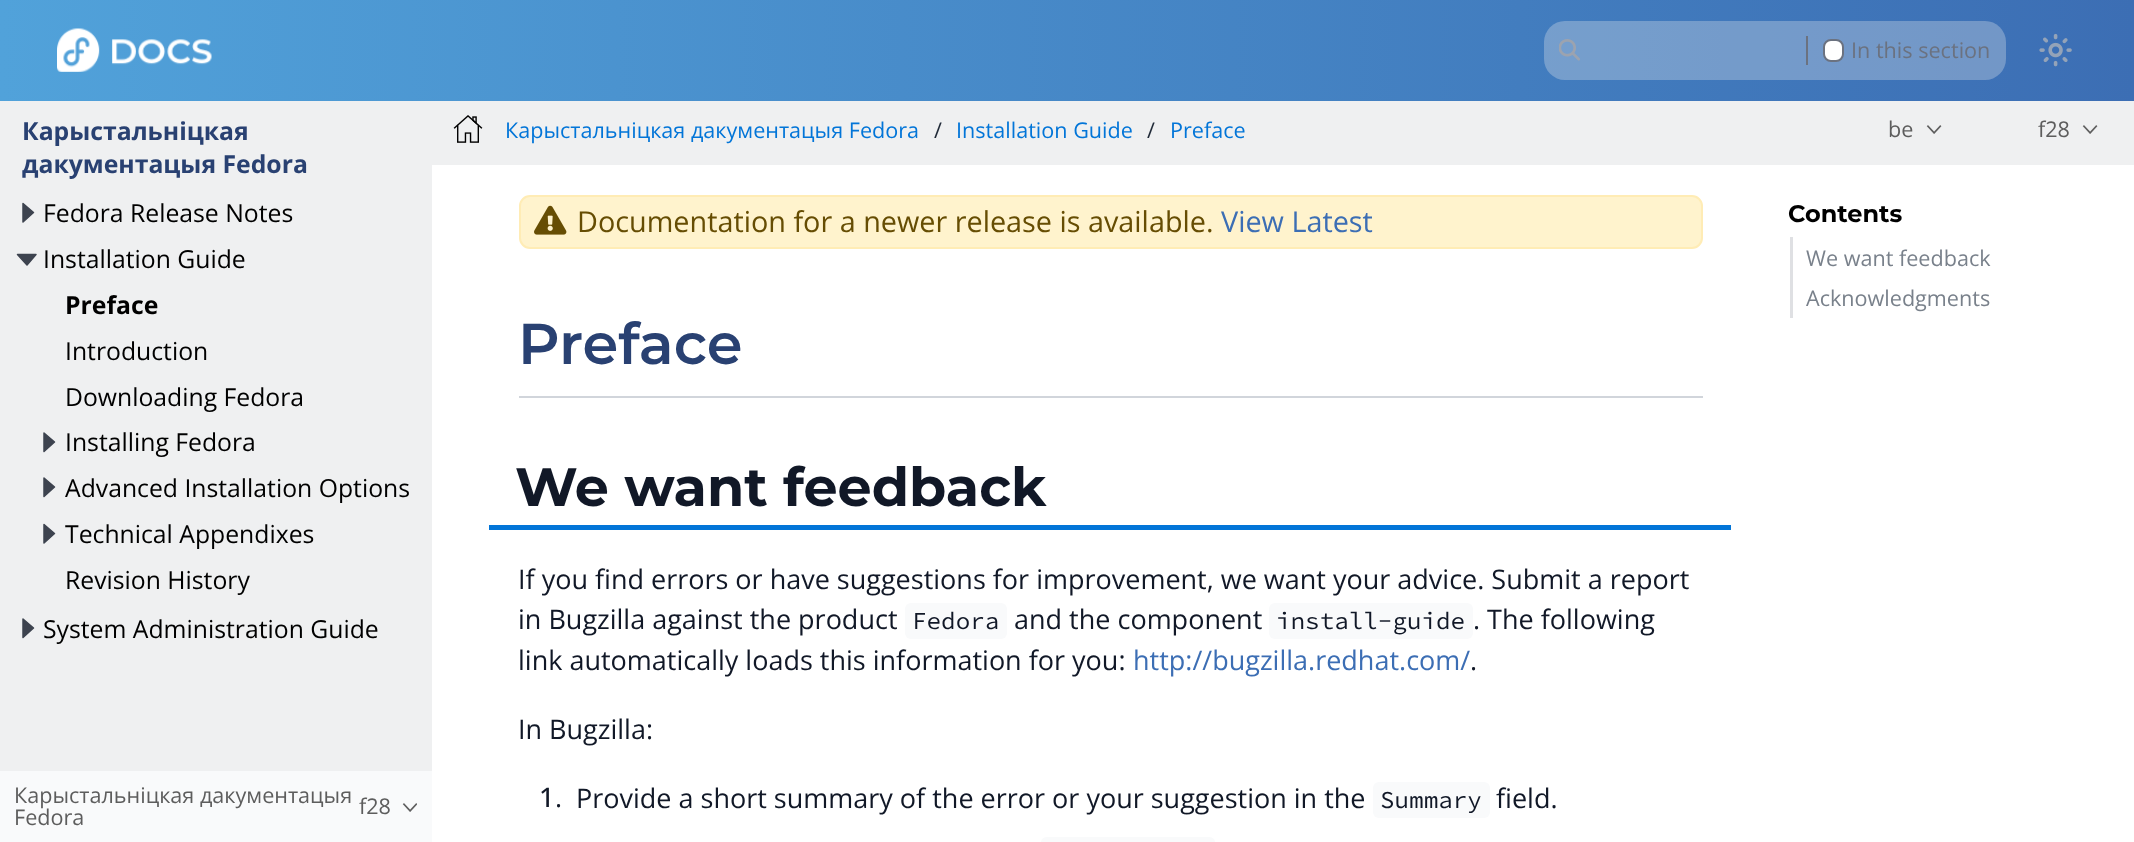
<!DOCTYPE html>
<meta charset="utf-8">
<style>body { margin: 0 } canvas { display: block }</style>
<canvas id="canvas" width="2134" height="842"></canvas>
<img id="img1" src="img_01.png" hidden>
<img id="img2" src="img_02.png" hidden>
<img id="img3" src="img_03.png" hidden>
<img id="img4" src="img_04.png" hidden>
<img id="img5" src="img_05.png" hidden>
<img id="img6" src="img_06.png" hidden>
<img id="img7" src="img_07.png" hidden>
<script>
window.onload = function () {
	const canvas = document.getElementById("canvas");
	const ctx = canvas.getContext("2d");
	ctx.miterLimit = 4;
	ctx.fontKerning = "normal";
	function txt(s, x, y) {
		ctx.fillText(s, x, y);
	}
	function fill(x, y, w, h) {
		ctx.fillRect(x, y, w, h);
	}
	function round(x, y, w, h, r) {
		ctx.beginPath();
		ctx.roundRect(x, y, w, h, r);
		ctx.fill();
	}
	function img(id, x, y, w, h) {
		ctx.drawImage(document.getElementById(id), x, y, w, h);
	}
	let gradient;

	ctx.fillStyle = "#FFFFFF";
	fill(0, 0, 2134, 842);
	gradient = ctx.createLinearGradient(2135, 50, 0, 50);
	gradient.addColorStop(0, "#3C6EB4");
	gradient.addColorStop(1, "#51A2DA");
	ctx.fillStyle = gradient;
	fill(0, 0, 2134, 101);
	img("img1", 57, 28, 155, 44);
	ctx.fillStyle = "rgba(239, 239, 239, 0.3)";
	round(1544, 21, 462, 59, 21);
	img("img2", 1559, 39, 21, 22);
	ctx.fillStyle = "#6B7280";
	fill(1806, 36, 2, 29);
	ctx.fillStyle = "#FFFFFF";
	ctx.beginPath();
	ctx.roundRect(1824, 40, 19, 21, 7);
	ctx.fill();
	ctx.strokeStyle = "#6B7280";
	ctx.lineWidth = 2;
	ctx.stroke();
	img("img3", 2039, 33, 33, 34);
	ctx.fillStyle = "#EFF0F1";
	fill(0, 101, 432, 670);
	ctx.fillStyle = "#3D434F";
	ctx.beginPath();
	ctx.moveTo(23, 203.5);
	ctx.lineTo(33.5, 212.5);
	ctx.lineTo(23, 222);
	ctx.closePath();
	ctx.fill();
	ctx.strokeStyle = "#3D434F";
	ctx.lineWidth = 1.5;
	ctx.lineCap = "round";
	ctx.lineJoin = "round";
	ctx.stroke();
	ctx.beginPath();
	ctx.moveTo(36, 254.5);
	ctx.lineTo(27, 265);
	ctx.lineTo(17.5, 254.5);
	ctx.closePath();
	ctx.fill();
	ctx.stroke();
	ctx.beginPath();
	ctx.moveTo(44, 433);
	ctx.lineTo(54.5, 442);
	ctx.lineTo(44, 451.5);
	ctx.closePath();
	ctx.fill();
	ctx.stroke();
	ctx.beginPath();
	ctx.moveTo(44, 478);
	ctx.lineTo(54.5, 487);
	ctx.lineTo(44, 496.5);
	ctx.closePath();
	ctx.fill();
	ctx.stroke();
	ctx.beginPath();
	ctx.moveTo(44, 524.5);
	ctx.lineTo(54.5, 533.5);
	ctx.lineTo(44, 543);
	ctx.closePath();
	ctx.fill();
	ctx.stroke();
	ctx.beginPath();
	ctx.moveTo(23, 619);
	ctx.lineTo(33.5, 628);
	ctx.lineTo(23, 637.5);
	ctx.closePath();
	ctx.fill();
	ctx.stroke();
	ctx.fillStyle = "#F9FAFB";
	fill(0, 771, 432, 71);
	img("img4", 402, 803, 15, 9);
	ctx.fillStyle = "#EFF0F1";
	fill(432, 101, 1702, 64);
	img("img5", 453, 115, 30, 28);
	img("img6", 1926, 125, 16, 9);
	img("img6", 2082, 125, 16, 9);
	ctx.fillStyle = "#FFF3CD";
	ctx.beginPath();
	ctx.roundRect(520, 196, 1182, 52, 10);
	ctx.fill();
	ctx.strokeStyle = "#FFECB5";
	ctx.lineWidth = 2;
	ctx.lineJoin = "miter";
	ctx.stroke();
	img("img7", 534, 205, 33, 30);
	ctx.fillStyle = "#D1D5DB";
	fill(519, 396, 1184, 2);
	ctx.fillStyle = "#0275D8";
	fill(489, 525, 1242, 5);
	ctx.fillStyle = "#F9FAFB";
	round(905, 603, 102, 36, 6);
	round(1269, 603, 204, 36, 6);
	round(1373, 782, 117, 36, 6);
	round(1041, 837, 174, 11, 6);
	ctx.fillStyle = "#DFE0E3";
	fill(1790, 237, 3, 81);
	ctx.font = "21.6px Open Sans";
	ctx.fillStyle = "#6B7280";
	txt("In this section", 1851, 58);
	ctx.font = "bold 24.75px Open Sans";
	ctx.fillStyle = "#294172";
	txt("Карыстальніцкая", 22, 140);
	txt("дакументацыя Fedora", 22, 173);
	ctx.font = "24.75px Open Sans";
	ctx.fillStyle = "#000000";
	txt("Fedora Release Notes", 43, 222);
	txt("Installation Guide", 43, 268);
	ctx.font = "bold 24.75px Open Sans";
	txt("Preface", 65, 314);
	ctx.font = "24.75px Open Sans";
	txt("Introduction", 65, 360);
	txt("Downloading Fedora", 65, 406);
	txt("Installing Fedora", 65, 451);
	txt("Advanced Installation Options", 65, 497);
	txt("Technical Appendixes", 65, 543);
	txt("Revision History", 65, 589);
	txt("System Administration Guide", 43, 638);
	ctx.font = "21.6px Open Sans";
	ctx.fillStyle = "#5D5D5D";
	txt("Карыстальніцкая дакументацыя", 14, 803);
	txt("Fedora", 14, 825);
	txt("f28", 359, 814);
	ctx.fillStyle = "#0275D8";
	txt("Карыстальніцкая дакументацыя Fedora", 505, 138);
	ctx.fillStyle = "#1F2937";
	txt("/", 934, 138);
	ctx.fillStyle = "#0275D8";
	txt("Installation Guide", 956, 138);
	ctx.fillStyle = "#1F2937";
	txt("/", 1147, 138);
	ctx.fillStyle = "#0275D8";
	txt("Preface", 1170, 138);
	ctx.fillStyle = "#5D5D5D";
	txt("be", 1888, 137);
	txt("f28", 2038, 137);
	ctx.font = "28.8px Open Sans";
	ctx.fillStyle = "#664D03";
	txt("Documentation for a newer release is available.", 577, 232);
	ctx.fillStyle = "#3C6EB4";
	txt("View Latest", 1221, 232);
	ctx.font = "600 57.5px Montserrat";
	ctx.fillStyle = "#294172";
	txt("Preface", 518, 364);
	ctx.font = "bold 54px Montserrat";
	ctx.fillStyle = "#111827";
	txt("We want feedback", 515, 506);
	ctx.font = "27px Open Sans";
	txt("If you find errors or have suggestions for improvement, we want your advice. Submit a report", 518, 589);
	txt("in Bugzilla against the product", 518, 629);
	ctx.font = "24.25px Source Code Pro";
	txt("Fedora", 912, 629);
	ctx.font = "27px Open Sans";
	txt("and the component", 1014, 629);
	ctx.font = "24.25px Source Code Pro";
	txt("install-guide", 1276, 629);
	ctx.font = "27px Open Sans";
	txt(". The following", 1473, 629);
	txt("link automatically loads this information for you:", 518, 670);
	ctx.fillStyle = "#3C6EB4";
	txt("http://bugzilla.redhat.com/", 1133, 670);
	ctx.fillStyle = "#111827";
	txt(".", 1470, 670);
	txt("In Bugzilla:", 518, 739);
	ctx.font = "500 27px Open Sans";
	txt("1", 539, 807);
	ctx.font = "27px Open Sans";
	txt(".", 555, 807);
	txt("Provide a short summary of the error or your suggestion in the", 576, 808);
	ctx.font = "24.25px Source Code Pro";
	txt("Summary", 1380, 808);
	ctx.font = "27px Open Sans";
	txt("field.", 1496, 808);
	ctx.font = "bold 24px Montserrat";
	ctx.fillStyle = "#000000";
	txt("Contents", 1788, 222);
	ctx.font = "21.6px Open Sans";
	ctx.fillStyle = "#79818B";
	txt("We want feedback", 1806, 266);
	txt("Acknowledgments", 1806, 306);
};
</script>
